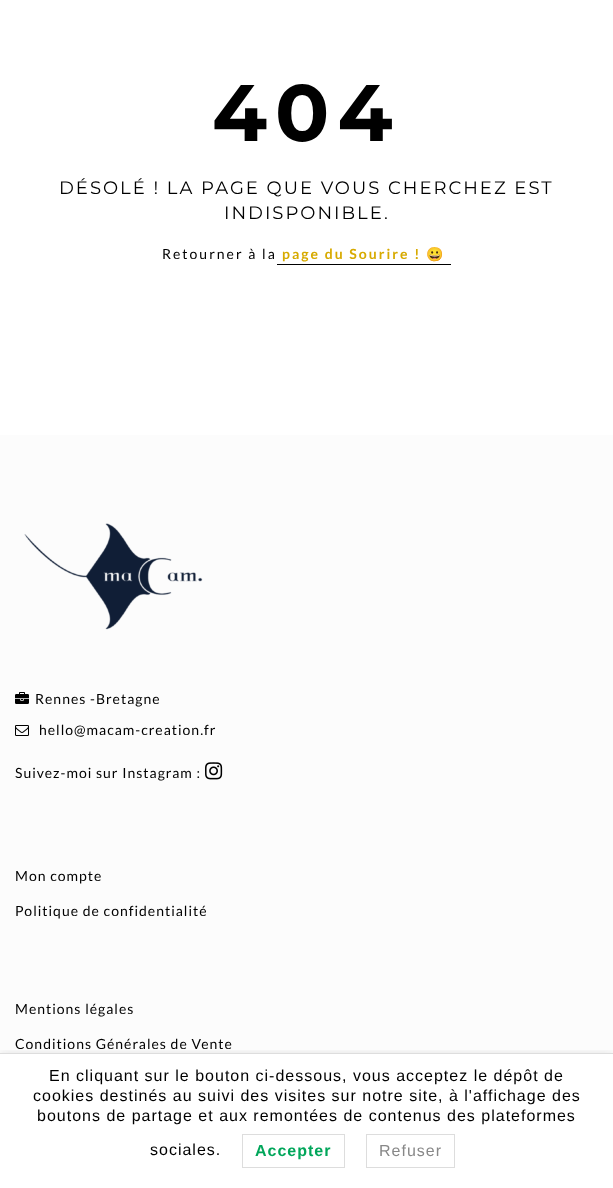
<!DOCTYPE html>
<meta charset="utf-8">
<style>body { margin: 0 } canvas { display: block }</style>
<canvas id="canvas" width="613" height="1188"></canvas>
<img id="img1" src="img_01.png" hidden>
<img id="img2" src="img_02.png" hidden>
<img id="img3" src="img_03.png" hidden>
<img id="img4" src="img_04.png" hidden>
<script>
window.onload = function () {
	const canvas = document.getElementById("canvas");
	const ctx = canvas.getContext("2d");
	ctx.miterLimit = 4;
	ctx.fontKerning = "normal";
	function txt(s, x, y) {
		ctx.fillText(s, x, y);
	}
	function fill(x, y, w, h) {
		ctx.fillRect(x, y, w, h);
	}
	function img(id, x, y, w, h) {
		ctx.drawImage(document.getElementById(id), x, y, w, h);
	}

	ctx.fillStyle = "#FFFFFF";
	fill(0, 0, 613, 1188);
	ctx.fillStyle = "#FCFCFC";
	fill(0, 435, 613, 618);
	ctx.fillStyle = "#000000";
	fill(277, 264, 174, 1);
	img("img1", 24, 523, 179, 107);
	img("img2", 15, 692, 14, 12);
	img("img3", 15, 725, 14, 11);
	img("img4", 205, 762, 18, 18);
	ctx.save();
	ctx.beginPath();
	ctx.rect(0, 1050, 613, 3);
	ctx.clip();
	ctx.fillStyle = "rgba(0, 0, 0, 0.1)";
	ctx.filter = "blur(4px)";
	ctx.beginPath();
	ctx.rect(0, 1053, 613, 135);
	ctx.fill();
	ctx.filter = "none";
	ctx.restore();
	ctx.fillStyle = "#DDDDDD";
	fill(0, 1053, 613, 1);
	ctx.strokeStyle = "#DDDDDD";
	ctx.strokeRect(242.5, 1134.5, 102, 33);
	ctx.strokeRect(366.5, 1134.5, 88, 33);
	ctx.letterSpacing = "8px";
	ctx.font = "bold 80px Montserrat";
	ctx.fillStyle = "#000000";
	txt("404", 212, 141);
	ctx.letterSpacing = "2px";
	ctx.font = "18px Montserrat";
	txt("DÉSOLÉ ! LA PAGE QUE VOUS CHERCHEZ EST", 59, 194);
	txt("INDISPONIBLE.", 224, 219);
	ctx.font = "14px Lato";
	txt("Retourner à la", 162, 259);
	ctx.font = "bold 14px Lato";
	ctx.fillStyle = "#D7AA00";
	txt("page du Sourire !", 282, 259);
	ctx.font = "bold 14px Noto Color Emoji";
	txt("😀", 426, 259);
	ctx.letterSpacing = "1px";
	ctx.font = "14px Lato";
	ctx.fillStyle = "#000000";
	txt("Rennes -Bretagne", 35, 704);
	txt("hello@macam-creation.fr", 39, 735);
	txt("Suivez-moi sur Instagram :", 15, 778);
	txt("Mon compte", 15, 881);
	txt("Politique de confidentialité", 15, 916);
	txt("Mentions légales", 15, 1014);
	txt("Conditions Générales de Vente", 15, 1049);
	ctx.font = "16px Liberation Sans";
	txt("En cliquant sur le bouton ci-dessous, vous acceptez le dépôt de", 49, 1081);
	txt("cookies destinés au suivi des visites sur notre site, à l'affichage des", 33, 1101);
	txt("boutons de partage et aux remontées de contenus des plateformes", 37, 1121);
	txt("sociales.", 150, 1155);
	ctx.font = "bold 16px Liberation Sans";
	ctx.fillStyle = "#00A65A";
	txt("Accepter", 255, 1156);
	ctx.font = "16px Liberation Sans";
	ctx.fillStyle = "#888888";
	txt("Refuser", 379, 1156);
};
</script>
